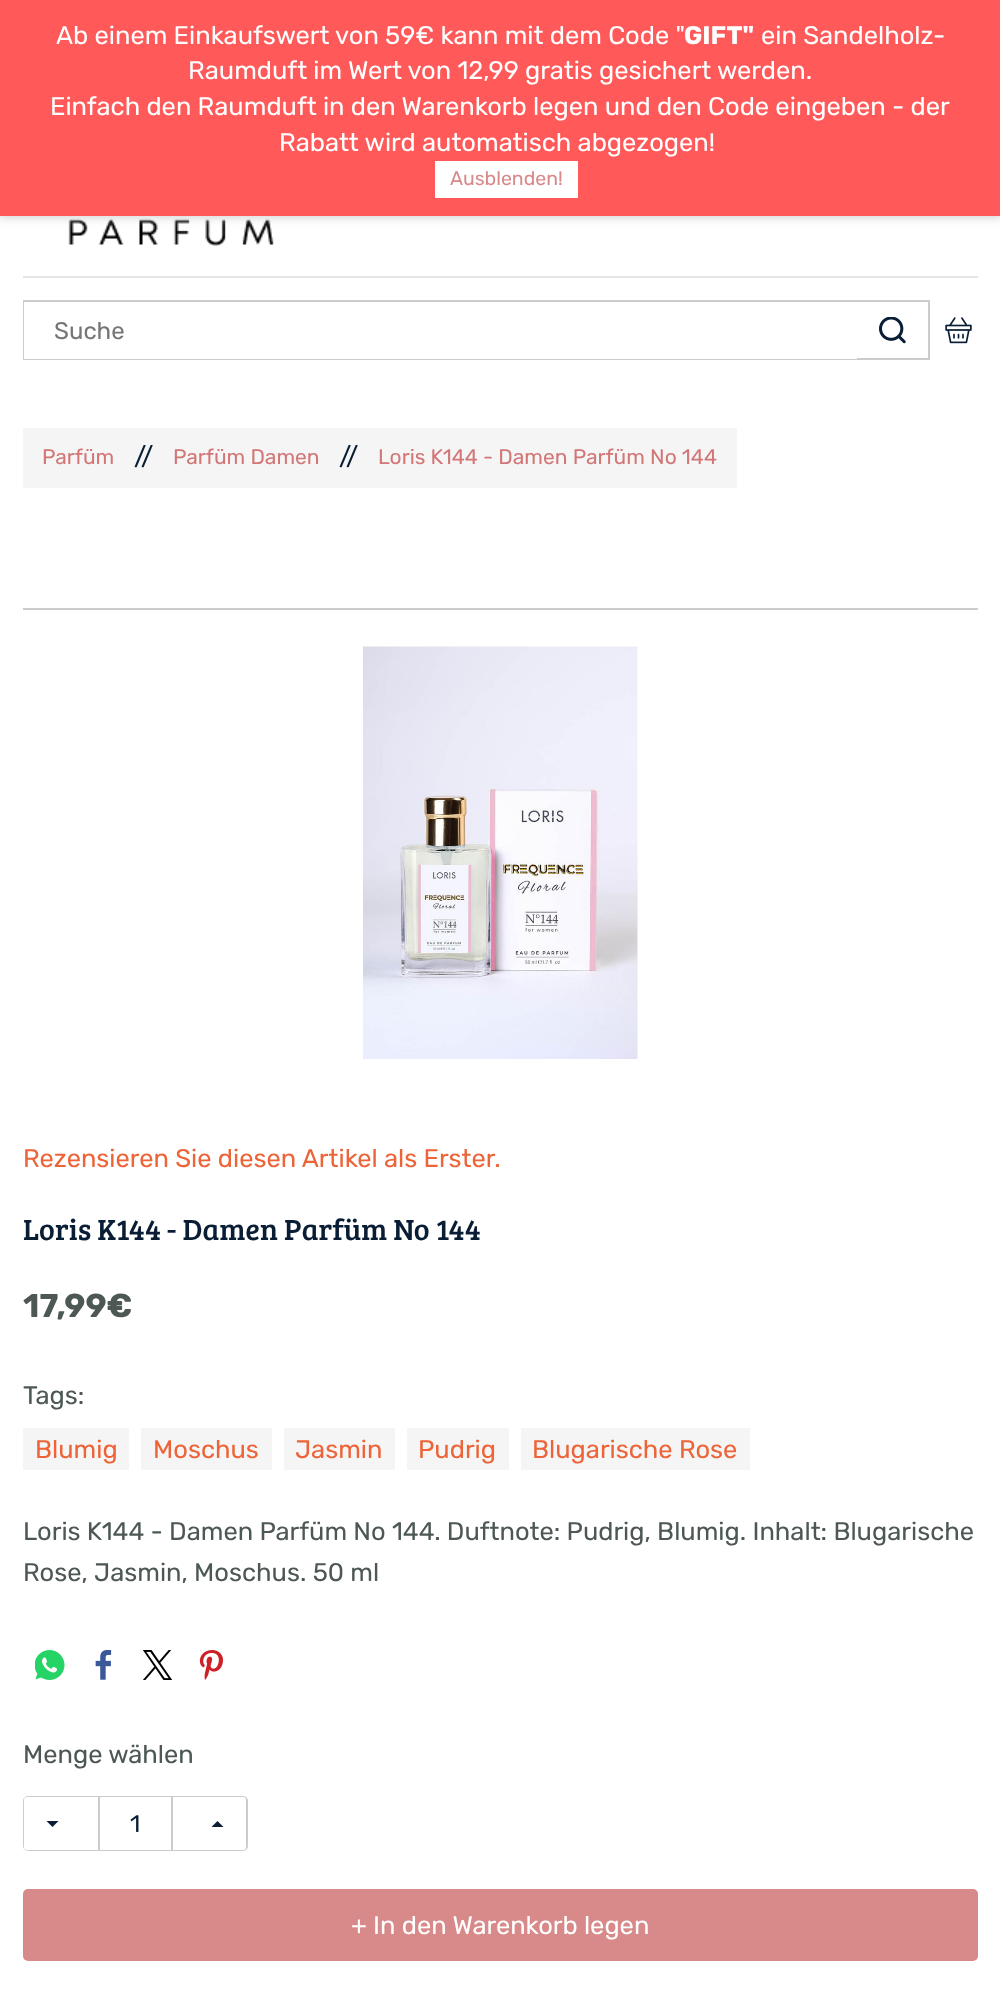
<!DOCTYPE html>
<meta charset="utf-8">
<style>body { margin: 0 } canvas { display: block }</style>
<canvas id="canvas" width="1000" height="1997"></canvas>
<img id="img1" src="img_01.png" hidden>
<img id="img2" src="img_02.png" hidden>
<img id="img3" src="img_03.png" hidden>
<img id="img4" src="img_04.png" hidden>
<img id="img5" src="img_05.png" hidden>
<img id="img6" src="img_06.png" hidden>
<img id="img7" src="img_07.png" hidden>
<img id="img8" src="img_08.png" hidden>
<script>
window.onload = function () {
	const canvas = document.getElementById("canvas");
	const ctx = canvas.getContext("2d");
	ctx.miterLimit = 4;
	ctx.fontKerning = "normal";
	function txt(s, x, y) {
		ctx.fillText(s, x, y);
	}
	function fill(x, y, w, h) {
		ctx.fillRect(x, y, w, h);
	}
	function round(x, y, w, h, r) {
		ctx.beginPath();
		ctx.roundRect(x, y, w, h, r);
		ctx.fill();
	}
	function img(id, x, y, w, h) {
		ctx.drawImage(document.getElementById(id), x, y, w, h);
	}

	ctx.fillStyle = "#FFFFFF";
	fill(0, 0, 1000, 1997);
	img("img1", 68, 218, 206, 28);
	ctx.fillStyle = "#D6D6D6";
	ctx.filter = "blur(4px)";
	ctx.beginPath();
	ctx.rect(-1, -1, 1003, 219);
	ctx.fill();
	ctx.filter = "none";
	ctx.fillStyle = "#FF5959";
	fill(0, 0, 1000, 216);
	ctx.fillStyle = "#FFFFFF";
	fill(435, 161, 143, 37);
	ctx.fillStyle = "#E6E6E6";
	fill(23, 276, 955, 2);
	ctx.strokeStyle = "#CCCCCC";
	ctx.lineWidth = 2;
	ctx.strokeRect(24, 301, 905, 58);
	ctx.fillStyle = "#FFFFFF";
	fill(24, 302, 833, 57);
	img("img2", 879, 317, 27, 27);
	img("img3", 945, 317, 27, 27);
	ctx.fillStyle = "#F5F5F5";
	fill(23, 428, 714, 60);
	ctx.fillStyle = "#CCCCCC";
	fill(23, 608, 955, 2);
	img("img4", 363, 646, 275, 413);
	ctx.fillStyle = "#F5F5F5";
	fill(23, 1428, 106, 42);
	fill(141, 1428, 131, 42);
	fill(284, 1428, 111, 42);
	fill(407, 1428, 102, 42);
	fill(521, 1428, 229, 42);
	img("img5", 35, 1650, 30, 30);
	img("img6", 95, 1650, 17, 30);
	img("img7", 143, 1650, 30, 30);
	img("img8", 199, 1650, 24, 30);
	ctx.beginPath();
	ctx.roundRect(24, 1797, 223, 53, 4);
	ctx.stroke();
	ctx.fillStyle = "#FFFFFF";
	ctx.beginPath();
	ctx.roundRect(24, 1797, 74, 53, [3, 0, 0, 3]);
	ctx.fill();
	fill(100, 1797, 71, 53);
	ctx.fillStyle = "#CCCCCC";
	fill(171, 1797, 2, 53);
	fill(98, 1797, 2, 53);
	ctx.fillStyle = "#FFFFFF";
	ctx.beginPath();
	ctx.roundRect(173, 1797, 73, 53, [0, 3, 3, 0]);
	ctx.fill();
	ctx.fillStyle = "#091D35";
	ctx.beginPath();
	ctx.moveTo(46.5, 1821);
	ctx.lineTo(58.5, 1821);
	ctx.lineTo(52.5, 1827);
	ctx.closePath();
	ctx.fill();
	ctx.beginPath();
	ctx.moveTo(223.5, 1827);
	ctx.lineTo(211.5, 1827);
	ctx.lineTo(217.5, 1821);
	ctx.closePath();
	ctx.fill();
	ctx.fillStyle = "#D88989";
	round(23, 1889, 955, 72, 5);
	ctx.font = "25.5px Rubik";
	ctx.fillStyle = "#FFFFFF";
	txt("Ab einem Einkaufswert von 59€ kann mit dem Code \"", 56, 44);
	ctx.font = "bold 25.5px Rubik";
	txt("GIFT\"", 684, 44);
	ctx.font = "25.5px Rubik";
	txt("ein Sandelholz-", 761, 44);
	txt("Raumduft im Wert von 12,99 gratis gesichert werden.", 188, 79);
	txt("Einfach den Raumduft in den Warenkorb legen und den Code eingeben - der", 50, 115);
	txt("Rabatt wird automatisch abgezogen!", 279, 151);
	ctx.font = "19.5px Rubik";
	ctx.fillStyle = "#D88989";
	txt("Ausblenden!", 450, 185);
	ctx.font = "24px Rubik";
	ctx.fillStyle = "#757575";
	txt("Suche", 54, 339);
	ctx.font = "21px Rubik";
	ctx.fillStyle = "#D27676";
	txt("Parfüm", 42, 464);
	ctx.font = "25.5px Rubik";
	ctx.fillStyle = "#091D35";
	txt("//", 134, 465);
	ctx.font = "21px Rubik";
	ctx.fillStyle = "#D27676";
	txt("Parfüm Damen", 173, 464);
	ctx.font = "25.5px Rubik";
	ctx.fillStyle = "#091D35";
	txt("//", 339, 465);
	ctx.font = "21px Rubik";
	ctx.fillStyle = "#D27676";
	txt("Loris K144 - Damen Parfüm No 144", 378, 464);
	ctx.font = "25.5px Rubik";
	ctx.fillStyle = "#EC6438";
	txt("Rezensieren Sie diesen Artikel als Erster.", 23, 1167);
	ctx.font = "30px Bree Serif";
	ctx.fillStyle = "#091D35";
	txt("Loris K144 - Damen Parfüm No 144", 23, 1240);
	ctx.font = "bold 33px Rubik";
	ctx.fillStyle = "#4D5855";
	txt("17,99€", 23, 1317);
	ctx.font = "25.5px Rubik";
	txt("Tags:", 23, 1404);
	ctx.fillStyle = "#EC6438";
	txt("Blumig", 35, 1458);
	txt("Moschus", 153, 1458);
	txt("Jasmin", 295, 1458);
	txt("Pudrig", 418, 1458);
	txt("Blugarische Rose", 532, 1458);
	ctx.fillStyle = "#4D5855";
	txt("Loris K144 - Damen Parfüm No 144. Duftnote: Pudrig, Blumig. Inhalt: Blugarische", 23, 1540);
	txt("Rose, Jasmin, Moschus. 50 ml", 23, 1581);
	txt("Menge wählen", 23, 1763);
	ctx.font = "24px Rubik";
	ctx.fillStyle = "#091D35";
	txt("1", 130, 1832);
	ctx.font = "25.5px Rubik";
	ctx.fillStyle = "#FFFFFF";
	txt("+ In den Warenkorb legen", 351, 1934);
};
</script>
